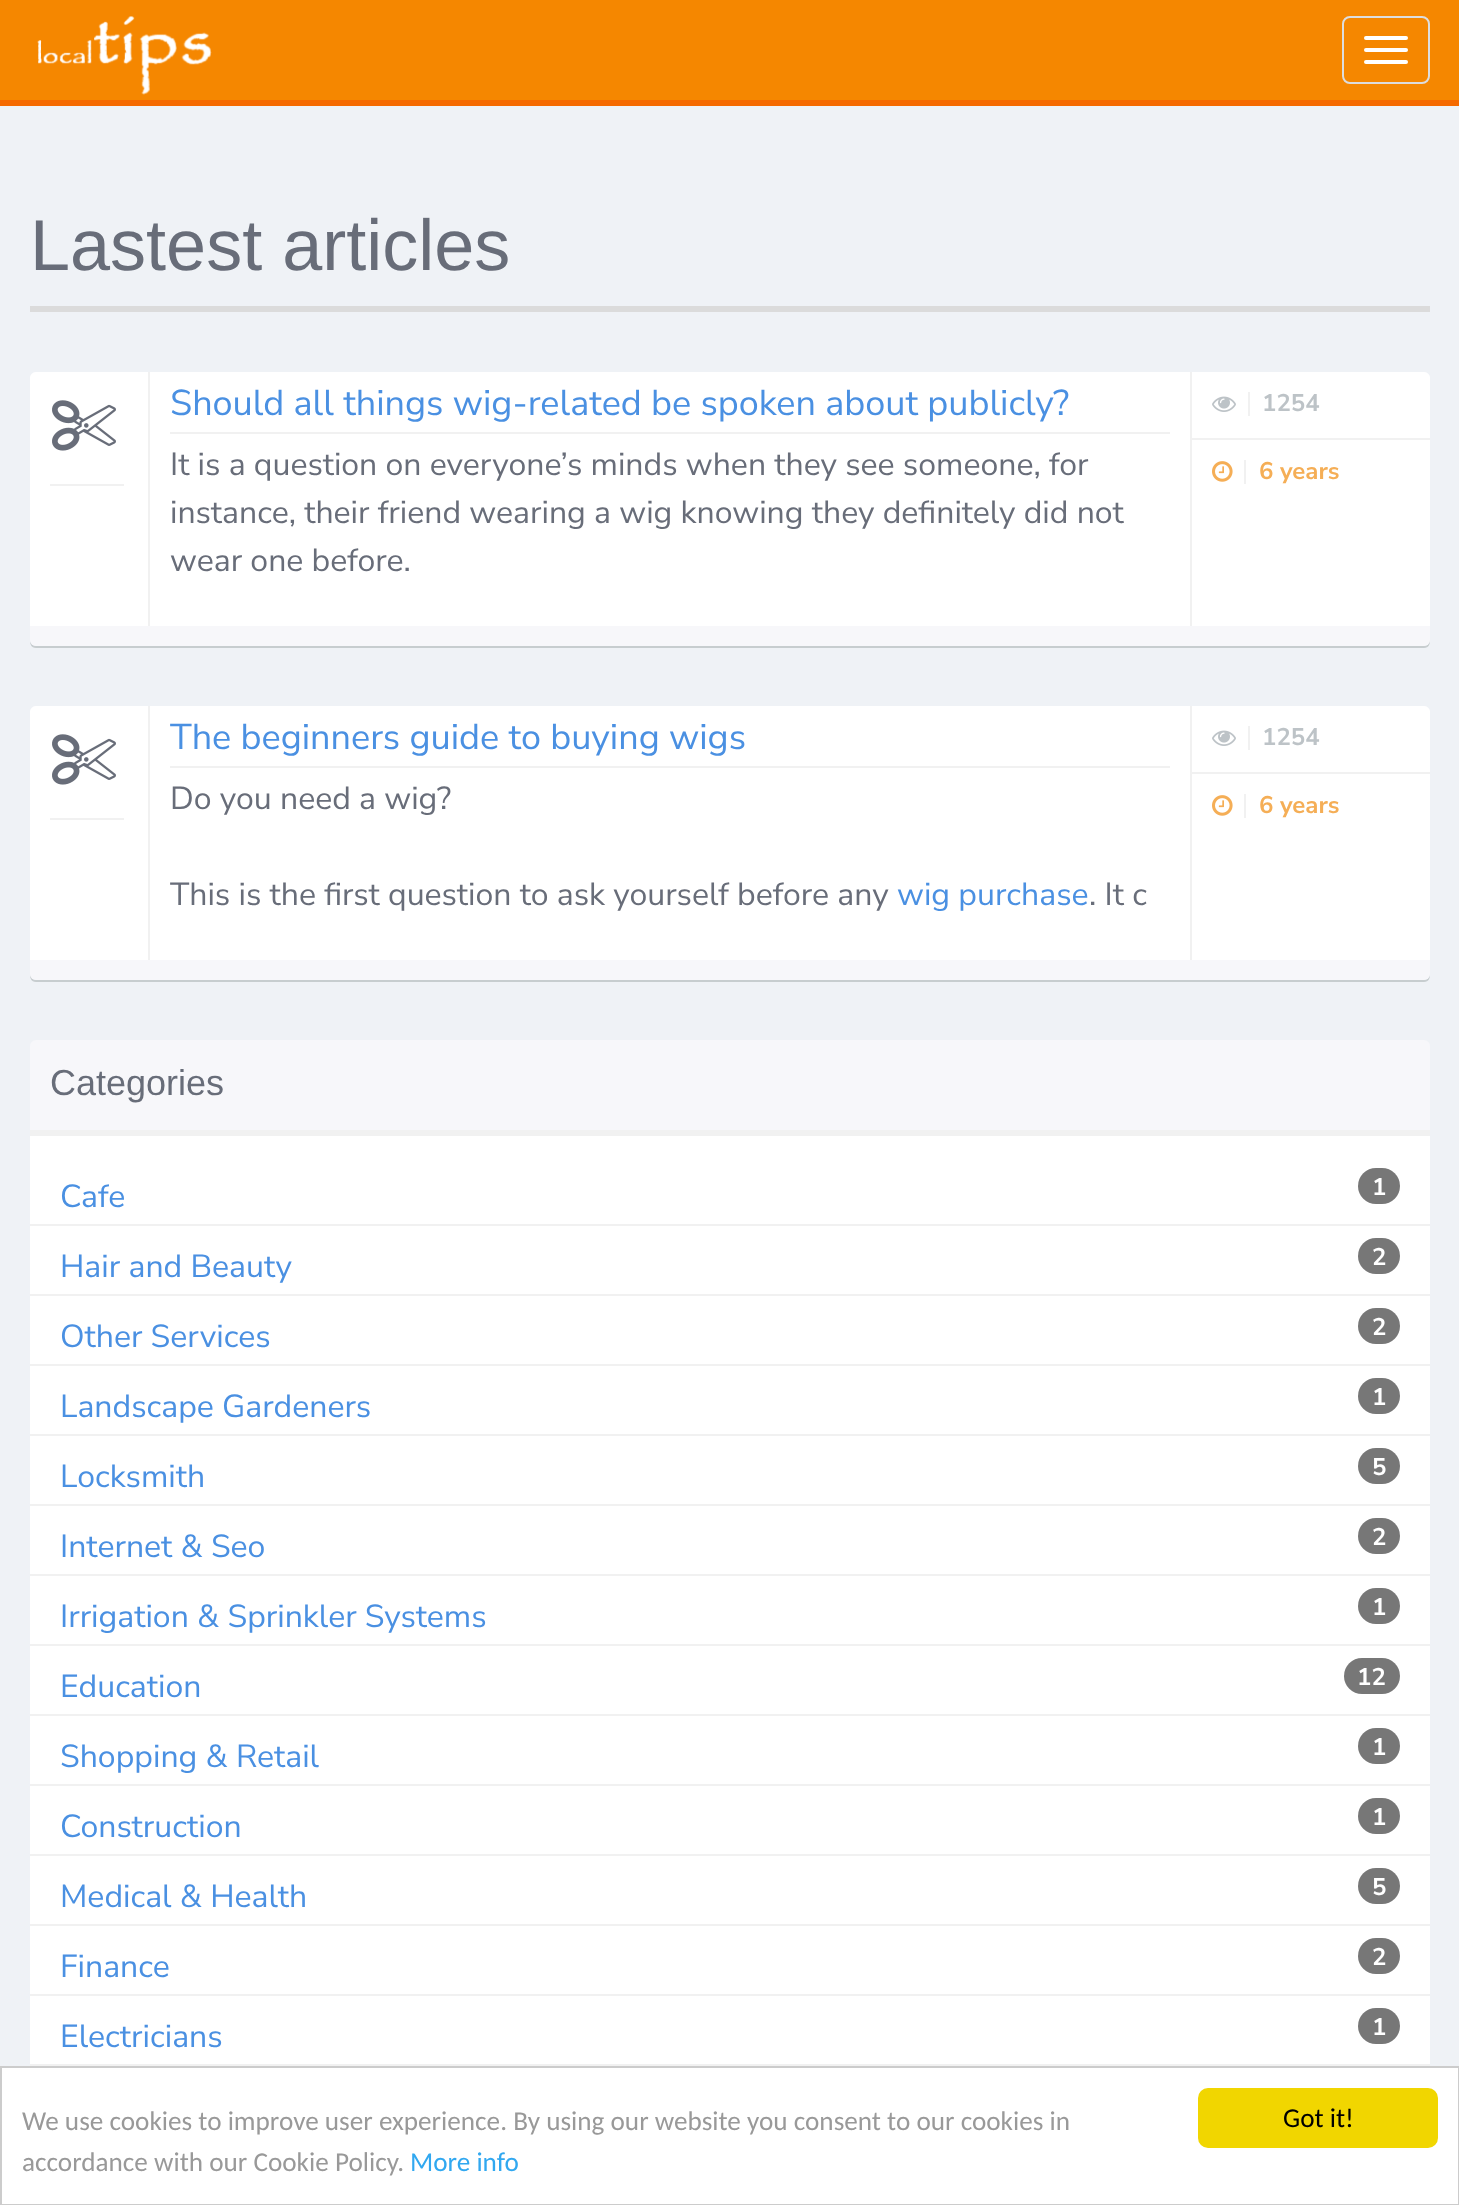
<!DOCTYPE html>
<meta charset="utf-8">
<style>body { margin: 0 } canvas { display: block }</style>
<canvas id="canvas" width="1459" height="2205"></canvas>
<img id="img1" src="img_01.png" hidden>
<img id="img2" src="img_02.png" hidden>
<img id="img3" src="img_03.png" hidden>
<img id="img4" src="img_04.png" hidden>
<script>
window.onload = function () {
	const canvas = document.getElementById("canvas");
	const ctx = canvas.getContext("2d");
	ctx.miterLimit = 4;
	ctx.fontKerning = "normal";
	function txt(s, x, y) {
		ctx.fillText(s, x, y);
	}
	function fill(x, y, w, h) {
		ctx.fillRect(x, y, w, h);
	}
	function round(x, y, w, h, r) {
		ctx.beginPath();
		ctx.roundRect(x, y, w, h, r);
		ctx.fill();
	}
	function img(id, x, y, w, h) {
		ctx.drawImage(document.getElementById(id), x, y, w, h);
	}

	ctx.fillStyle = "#EFF2F6";
	fill(0, 0, 1459, 2205);
	ctx.fillStyle = "#F58700";
	fill(0, 0, 1459, 100);
	ctx.fillStyle = "#F56A00";
	fill(0, 100, 1459, 6);
	img("img1", 37, 16, 175, 79);
	ctx.beginPath();
	ctx.roundRect(1343, 17, 86, 66, 7);
	ctx.strokeStyle = "#DDDDDD";
	ctx.lineWidth = 2;
	ctx.stroke();
	ctx.fillStyle = "#FFFFFF";
	round(1364, 36, 44, 4, 2);
	round(1364, 48, 44, 4, 2);
	round(1364, 60, 44, 4, 2);
	ctx.fillStyle = "#DBDBDB";
	fill(30, 306, 1400, 6);
	ctx.fillStyle = "#C7CDCF";
	ctx.beginPath();
	ctx.moveTo(30, 640);
	ctx.bezierCurveTo(30, 644, 31, 648, 36, 648);
	ctx.lineTo(1424, 648);
	ctx.bezierCurveTo(1429, 648, 1430, 644, 1430, 640);
	ctx.bezierCurveTo(1430, 643, 1427, 646, 1424, 646);
	ctx.lineTo(36, 646);
	ctx.bezierCurveTo(33, 646, 30, 643, 30, 640);
	ctx.closePath();
	ctx.fill();
	ctx.fillStyle = "#F7F7FA";
	round(30, 372, 1400, 274, 6);
	ctx.fillStyle = "#FFFFFF";
	ctx.beginPath();
	ctx.roundRect(30, 372, 1400, 254, [6, 6, 0, 0]);
	ctx.fill();
	ctx.fillStyle = "#F1F1F1";
	fill(148, 372, 2, 254);
	fill(50, 484, 74, 2);
	img("img2", 52, 400, 64, 51);
	fill(170, 432, 1000, 2);
	fill(1190, 372, 2, 254);
	fill(1192, 438, 238, 2);
	fill(1248, 392, 2, 24);
	img("img3", 1212, 396, 24, 16);
	fill(1244, 460, 2, 24);
	img("img4", 1212, 461, 21, 21);
	ctx.fillStyle = "#C7CDCF";
	ctx.beginPath();
	ctx.moveTo(30, 974);
	ctx.bezierCurveTo(30, 978, 31, 982, 36, 982);
	ctx.lineTo(1424, 982);
	ctx.bezierCurveTo(1429, 982, 1430, 978, 1430, 974);
	ctx.bezierCurveTo(1430, 977, 1427, 980, 1424, 980);
	ctx.lineTo(36, 980);
	ctx.bezierCurveTo(33, 980, 30, 977, 30, 974);
	ctx.closePath();
	ctx.fill();
	ctx.fillStyle = "#F7F7FA";
	round(30, 706, 1400, 274, 6);
	ctx.fillStyle = "#FFFFFF";
	ctx.beginPath();
	ctx.roundRect(30, 706, 1400, 254, [6, 6, 0, 0]);
	ctx.fill();
	ctx.fillStyle = "#F1F1F1";
	fill(148, 706, 2, 254);
	fill(50, 818, 74, 2);
	img("img2", 52, 734, 64, 51);
	fill(170, 766, 1000, 2);
	fill(1190, 706, 2, 254);
	fill(1192, 772, 238, 2);
	fill(1248, 726, 2, 24);
	img("img3", 1212, 730, 24, 16);
	fill(1244, 794, 2, 24);
	img("img4", 1212, 795, 21, 21);
	ctx.fillStyle = "#F7F7FA";
	round(30, 1040, 1400, 1088, 6);
	ctx.fillStyle = "#F1F1F1";
	fill(30, 1130, 1400, 6);
	ctx.fillStyle = "#FFFFFF";
	fill(30, 1136, 1400, 928);
	ctx.fillStyle = "#F1F1F1";
	fill(30, 1224, 1400, 2);
	ctx.fillStyle = "#777777";
	round(1358, 1168, 42, 36, 18);
	ctx.fillStyle = "#F1F1F1";
	fill(30, 1294, 1400, 2);
	ctx.fillStyle = "#777777";
	round(1358, 1238, 42, 36, 18);
	ctx.fillStyle = "#F1F1F1";
	fill(30, 1364, 1400, 2);
	ctx.fillStyle = "#777777";
	round(1358, 1308, 42, 36, 18);
	ctx.fillStyle = "#F1F1F1";
	fill(30, 1434, 1400, 2);
	ctx.fillStyle = "#777777";
	round(1358, 1378, 42, 36, 18);
	ctx.fillStyle = "#F1F1F1";
	fill(30, 1504, 1400, 2);
	ctx.fillStyle = "#777777";
	round(1358, 1448, 42, 36, 18);
	ctx.fillStyle = "#F1F1F1";
	fill(30, 1574, 1400, 2);
	ctx.fillStyle = "#777777";
	round(1358, 1518, 42, 36, 18);
	ctx.fillStyle = "#F1F1F1";
	fill(30, 1644, 1400, 2);
	ctx.fillStyle = "#777777";
	round(1358, 1588, 42, 36, 18);
	ctx.fillStyle = "#F1F1F1";
	fill(30, 1714, 1400, 2);
	ctx.fillStyle = "#777777";
	round(1344, 1658, 56, 36, 18);
	ctx.fillStyle = "#F1F1F1";
	fill(30, 1784, 1400, 2);
	ctx.fillStyle = "#777777";
	round(1358, 1728, 42, 36, 18);
	ctx.fillStyle = "#F1F1F1";
	fill(30, 1854, 1400, 2);
	ctx.fillStyle = "#777777";
	round(1358, 1798, 42, 36, 18);
	ctx.fillStyle = "#F1F1F1";
	fill(30, 1924, 1400, 2);
	ctx.fillStyle = "#777777";
	round(1358, 1868, 42, 36, 18);
	ctx.fillStyle = "#F1F1F1";
	fill(30, 1994, 1400, 2);
	ctx.fillStyle = "#777777";
	round(1358, 1938, 42, 36, 18);
	ctx.fillStyle = "#F1F1F1";
	fill(30, 2064, 1400, 2);
	ctx.fillStyle = "#777777";
	round(1358, 2008, 42, 36, 18);
	ctx.fillStyle = "#FFFFFF";
	ctx.beginPath();
	ctx.rect(1, 2067, 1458, 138);
	ctx.fill();
	ctx.strokeStyle = "#CCCCCC";
	ctx.stroke();
	ctx.fillStyle = "#F1D600";
	round(1198, 2088, 240, 60, 10);
	ctx.font = "72px Liberation Sans";
	ctx.fillStyle = "#686D79";
	txt("Lastest articles", 30, 270);
	ctx.font = "36px Nunito Sans";
	ctx.fillStyle = "#4A90E2";
	txt("Should all things wig-related be spoken about publicly?", 170, 415);
	ctx.font = "32px Nunito Sans";
	ctx.fillStyle = "#686D79";
	txt("It is a question on everyone’s minds when they see someone, for", 170, 475);
	txt("instance, their friend wearing a wig knowing they definitely did not", 170, 523);
	txt("wear one before.", 170, 571);
	ctx.font = "bold 24px Nunito Sans";
	ctx.fillStyle = "#BDC3C7";
	txt("1254", 1262, 411);
	ctx.fillStyle = "#F5AE56";
	txt("6 years", 1259, 479);
	ctx.font = "36px Nunito Sans";
	ctx.fillStyle = "#4A90E2";
	txt("The beginners guide to buying wigs", 170, 749);
	ctx.font = "32px Nunito Sans";
	ctx.fillStyle = "#686D79";
	txt("Do you need a wig?", 170, 809);
	txt("This is the first question to ask yourself before any", 170, 905);
	ctx.fillStyle = "#4A90E2";
	txt("wig purchase", 897, 905);
	ctx.fillStyle = "#686D79";
	txt(". It c", 1089, 905);
	ctx.font = "bold 24px Nunito Sans";
	ctx.fillStyle = "#BDC3C7";
	txt("1254", 1262, 745);
	ctx.fillStyle = "#F5AE56";
	txt("6 years", 1259, 813);
	ctx.font = "36px Liberation Sans";
	ctx.fillStyle = "#686D79";
	txt("Categories", 50, 1095);
	ctx.font = "32px Nunito Sans";
	ctx.fillStyle = "#4A90E2";
	txt("Cafe", 60, 1207);
	ctx.font = "bold 24px Nunito Sans";
	ctx.fillStyle = "#FFFFFF";
	txt("1", 1372, 1195);
	ctx.font = "32px Nunito Sans";
	ctx.fillStyle = "#4A90E2";
	txt("Hair and Beauty", 60, 1277);
	ctx.font = "bold 24px Nunito Sans";
	ctx.fillStyle = "#FFFFFF";
	txt("2", 1372, 1265);
	ctx.font = "32px Nunito Sans";
	ctx.fillStyle = "#4A90E2";
	txt("Other Services", 60, 1347);
	ctx.font = "bold 24px Nunito Sans";
	ctx.fillStyle = "#FFFFFF";
	txt("2", 1372, 1335);
	ctx.font = "32px Nunito Sans";
	ctx.fillStyle = "#4A90E2";
	txt("Landscape Gardeners", 60, 1417);
	ctx.font = "bold 24px Nunito Sans";
	ctx.fillStyle = "#FFFFFF";
	txt("1", 1372, 1405);
	ctx.font = "32px Nunito Sans";
	ctx.fillStyle = "#4A90E2";
	txt("Locksmith", 60, 1487);
	ctx.font = "bold 24px Nunito Sans";
	ctx.fillStyle = "#FFFFFF";
	txt("5", 1372, 1475);
	ctx.font = "32px Nunito Sans";
	ctx.fillStyle = "#4A90E2";
	txt("Internet & Seo", 60, 1557);
	ctx.font = "bold 24px Nunito Sans";
	ctx.fillStyle = "#FFFFFF";
	txt("2", 1372, 1545);
	ctx.font = "32px Nunito Sans";
	ctx.fillStyle = "#4A90E2";
	txt("Irrigation & Sprinkler Systems", 60, 1627);
	ctx.font = "bold 24px Nunito Sans";
	ctx.fillStyle = "#FFFFFF";
	txt("1", 1372, 1615);
	ctx.font = "32px Nunito Sans";
	ctx.fillStyle = "#4A90E2";
	txt("Education", 60, 1697);
	ctx.font = "bold 24px Nunito Sans";
	ctx.fillStyle = "#FFFFFF";
	txt("12", 1357, 1685);
	ctx.font = "32px Nunito Sans";
	ctx.fillStyle = "#4A90E2";
	txt("Shopping & Retail", 60, 1767);
	ctx.font = "bold 24px Nunito Sans";
	ctx.fillStyle = "#FFFFFF";
	txt("1", 1372, 1755);
	ctx.font = "32px Nunito Sans";
	ctx.fillStyle = "#4A90E2";
	txt("Construction", 60, 1837);
	ctx.font = "bold 24px Nunito Sans";
	ctx.fillStyle = "#FFFFFF";
	txt("1", 1372, 1825);
	ctx.font = "32px Nunito Sans";
	ctx.fillStyle = "#4A90E2";
	txt("Medical & Health", 60, 1907);
	ctx.font = "bold 24px Nunito Sans";
	ctx.fillStyle = "#FFFFFF";
	txt("5", 1372, 1895);
	ctx.font = "32px Nunito Sans";
	ctx.fillStyle = "#4A90E2";
	txt("Finance", 60, 1977);
	ctx.font = "bold 24px Nunito Sans";
	ctx.fillStyle = "#FFFFFF";
	txt("2", 1372, 1965);
	ctx.font = "32px Nunito Sans";
	ctx.fillStyle = "#4A90E2";
	txt("Electricians", 60, 2047);
	ctx.font = "bold 24px Nunito Sans";
	ctx.fillStyle = "#FFFFFF";
	txt("1", 1372, 2035);
	ctx.font = "27.2px Carlito";
	ctx.fillStyle = "#999999";
	txt("We use cookies to improve user experience. By using our website you consent to our cookies in", 22, 2130);
	txt("accordance with our Cookie Policy.", 22, 2171);
	ctx.fillStyle = "#31A8F0";
	txt("More info", 410, 2171);
	ctx.fillStyle = "#000000";
	txt("Got it!", 1283, 2127);
};
</script>
